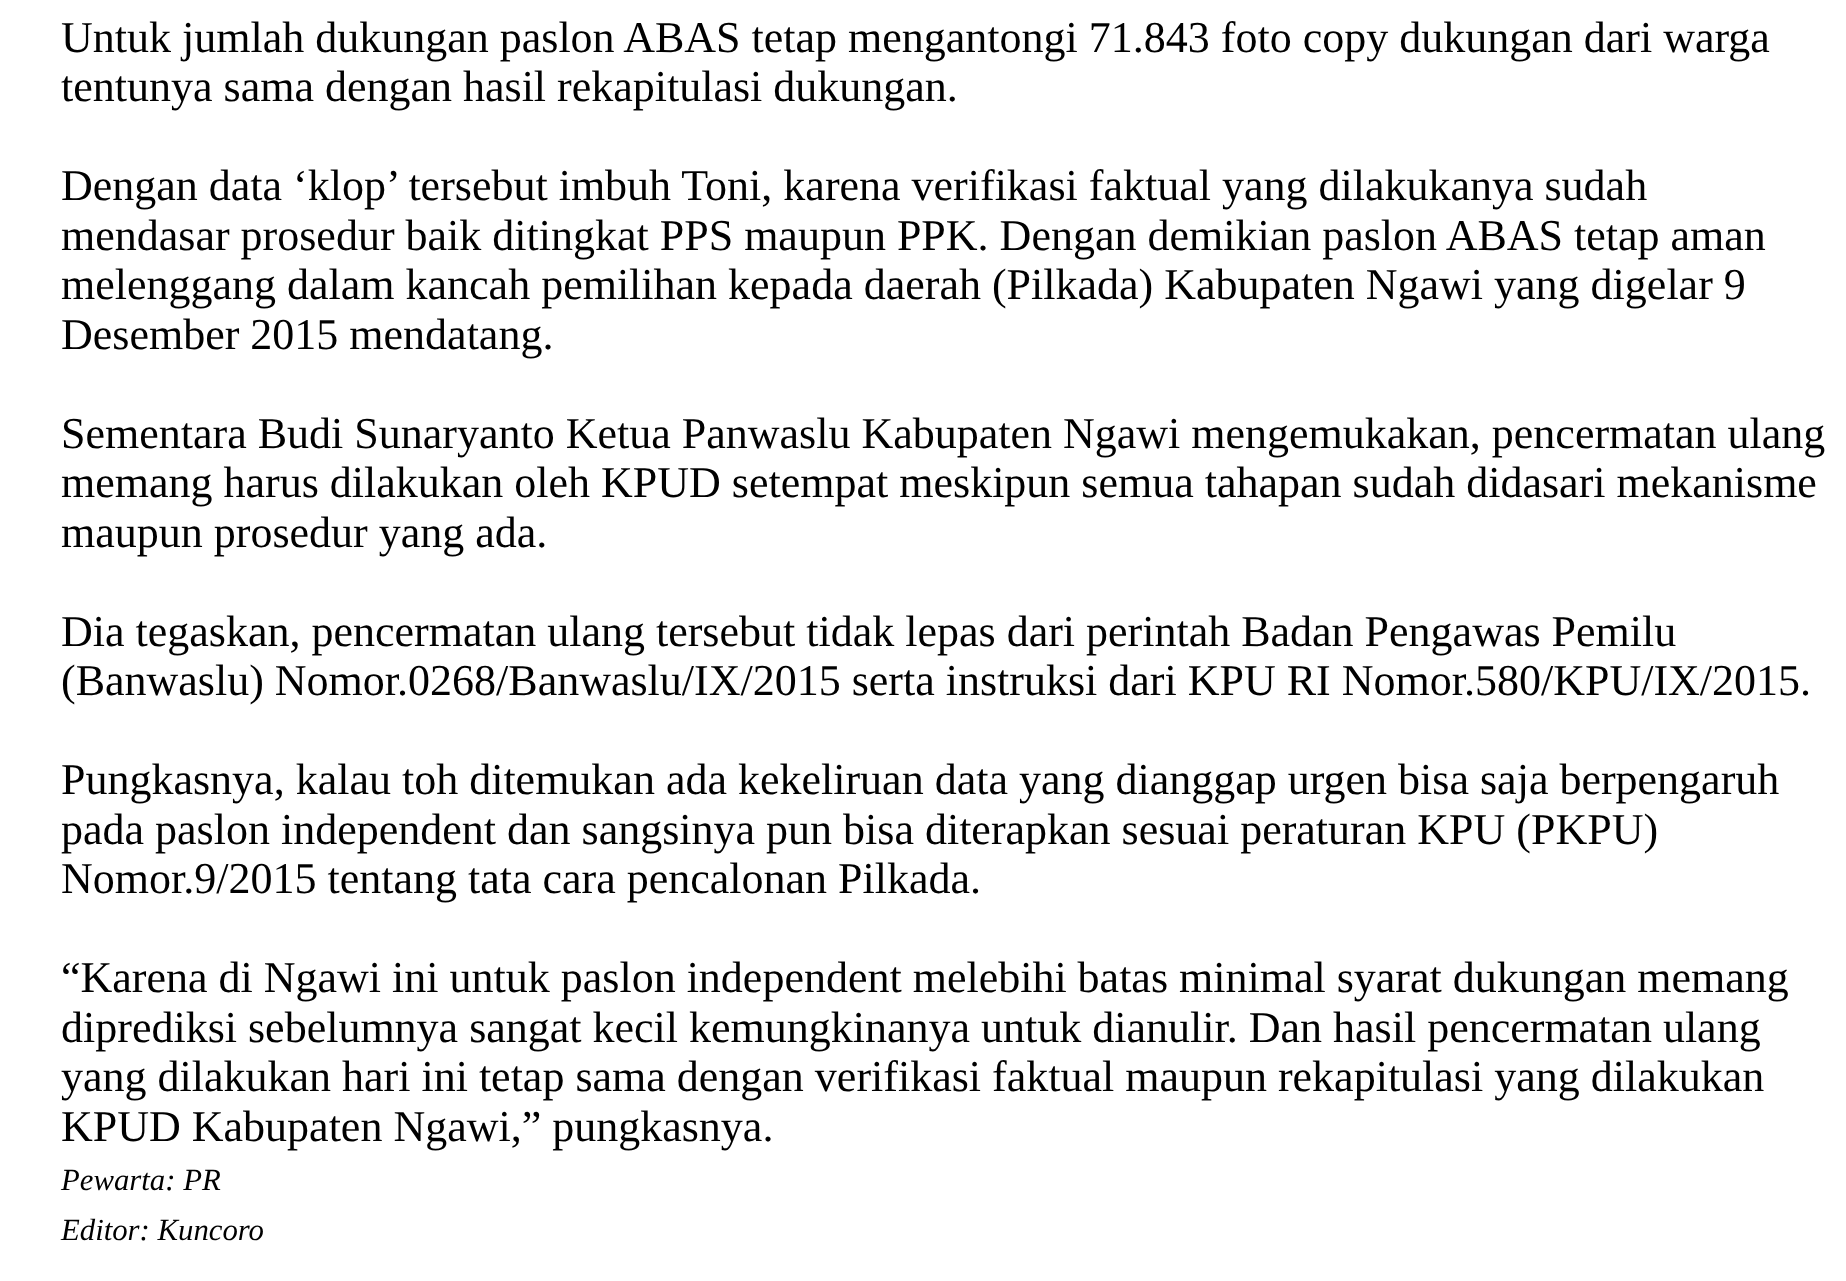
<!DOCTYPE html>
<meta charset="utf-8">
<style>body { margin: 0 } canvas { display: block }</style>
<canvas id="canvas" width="1846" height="1281"></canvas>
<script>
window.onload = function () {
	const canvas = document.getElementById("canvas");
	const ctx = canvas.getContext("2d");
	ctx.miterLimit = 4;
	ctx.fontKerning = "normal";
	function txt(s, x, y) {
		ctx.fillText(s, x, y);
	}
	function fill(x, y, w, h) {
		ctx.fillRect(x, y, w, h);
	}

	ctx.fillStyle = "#FFFFFF";
	fill(0, 0, 1846, 1281);
	ctx.font = "44px Liberation Serif";
	ctx.fillStyle = "#000000";
	txt("Untuk jumlah dukungan paslon ABAS tetap mengantongi 71.843 foto copy dukungan dari warga", 61, 52);
	txt("tentunya sama dengan hasil rekapitulasi dukungan.", 61, 101);
	txt("Dengan data ‘klop’ tersebut imbuh Toni, karena verifikasi faktual yang dilakukanya sudah", 61, 200);
	txt("mendasar prosedur baik ditingkat PPS maupun PPK. Dengan demikian paslon ABAS tetap aman", 61, 250);
	txt("melenggang dalam kancah pemilihan kepada daerah (Pilkada) Kabupaten Ngawi yang digelar 9", 61, 299);
	txt("Desember 2015 mendatang.", 61, 349);
	txt("Sementara Budi Sunaryanto Ketua Panwaslu Kabupaten Ngawi mengemukakan, pencermatan ulang", 61, 448);
	txt("memang harus dilakukan oleh KPUD setempat meskipun semua tahapan sudah didasari mekanisme", 61, 497);
	txt("maupun prosedur yang ada.", 61, 547);
	txt("Dia tegaskan, pencermatan ulang tersebut tidak lepas dari perintah Badan Pengawas Pemilu", 61, 646);
	txt("(Banwaslu) Nomor.0268/Banwaslu/IX/2015 serta instruksi dari KPU RI Nomor.580/KPU/IX/2015.", 61, 695);
	txt("Pungkasnya, kalau toh ditemukan ada kekeliruan data yang dianggap urgen bisa saja berpengaruh", 61, 794);
	txt("pada paslon independent dan sangsinya pun bisa diterapkan sesuai peraturan KPU (PKPU)", 61, 844);
	txt("Nomor.9/2015 tentang tata cara pencalonan Pilkada.", 61, 893);
	txt("“Karena di Ngawi ini untuk paslon independent melebihi batas minimal syarat dukungan memang", 61, 992);
	txt("diprediksi sebelumnya sangat kecil kemungkinanya untuk dianulir. Dan hasil pencermatan ulang", 61, 1042);
	txt("yang dilakukan hari ini tetap sama dengan verifikasi faktual maupun rekapitulasi yang dilakukan", 61, 1091);
	txt("KPUD Kabupaten Ngawi,” pungkasnya.", 61, 1141);
	ctx.font = "italic 30.75px Liberation Serif";
	txt("Pewarta: PR", 61, 1190);
	txt("Editor: Kuncoro", 61, 1240);
};
</script>
